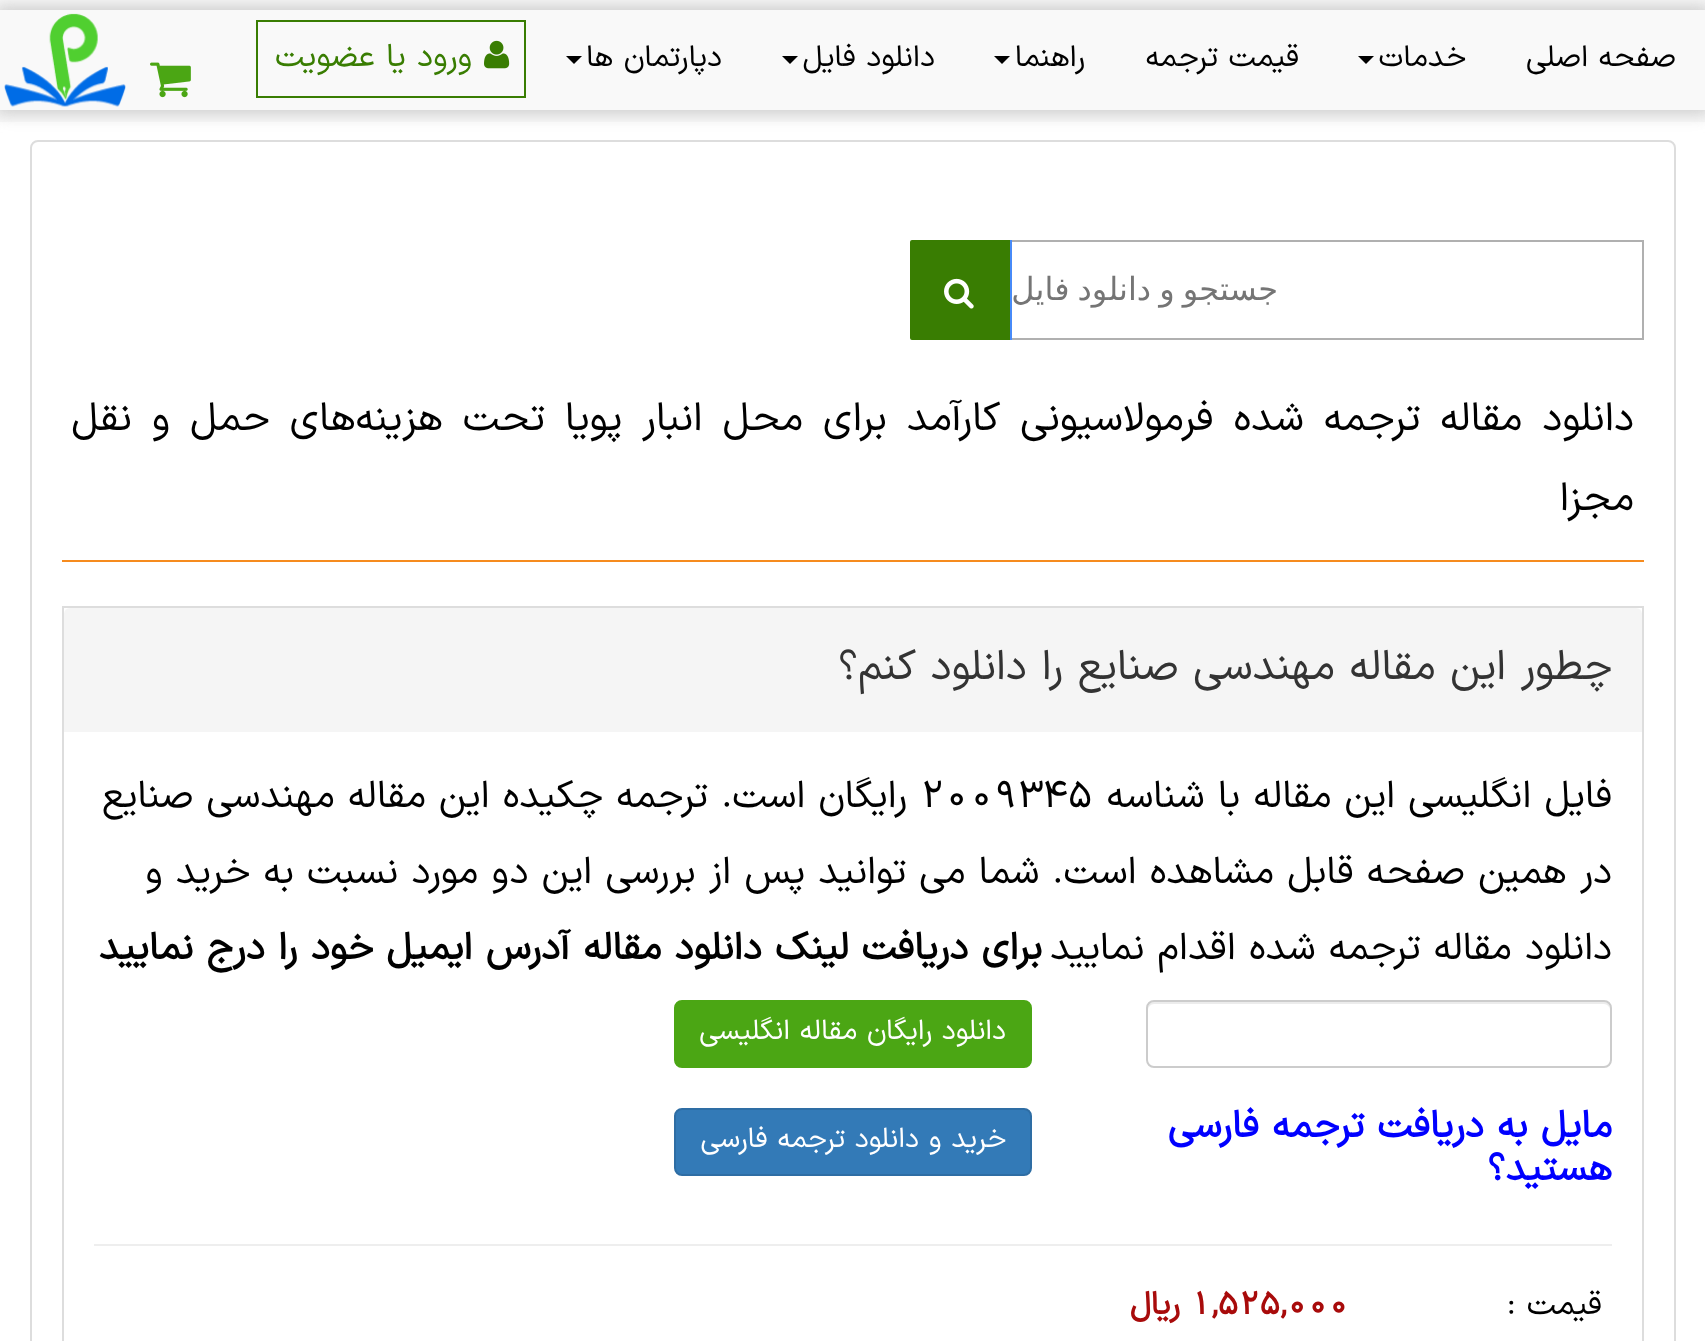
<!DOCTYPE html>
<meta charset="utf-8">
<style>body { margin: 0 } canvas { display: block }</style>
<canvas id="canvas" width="1705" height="1341"></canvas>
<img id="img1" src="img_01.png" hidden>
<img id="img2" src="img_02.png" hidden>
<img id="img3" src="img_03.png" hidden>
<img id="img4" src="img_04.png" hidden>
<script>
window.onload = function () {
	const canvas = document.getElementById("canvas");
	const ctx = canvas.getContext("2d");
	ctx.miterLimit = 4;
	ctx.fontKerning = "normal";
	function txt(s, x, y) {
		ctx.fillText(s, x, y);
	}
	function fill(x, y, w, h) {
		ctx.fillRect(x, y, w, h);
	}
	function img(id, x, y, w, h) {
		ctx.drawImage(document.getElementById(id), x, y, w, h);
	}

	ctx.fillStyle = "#FFFFFF";
	fill(0, 0, 1705, 1341);
	ctx.fillStyle = "#F9F9F9";
	fill(0, 0, 1705, 122);
	ctx.save();
	ctx.beginPath();
	ctx.moveTo(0, 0);
	ctx.lineTo(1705, 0);
	ctx.lineTo(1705, 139);
	ctx.lineTo(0, 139);
	ctx.closePath();
	ctx.moveTo(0, 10);
	ctx.lineTo(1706, 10);
	ctx.lineTo(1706, 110);
	ctx.lineTo(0, 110);
	ctx.closePath();
	ctx.clip("evenodd");
	ctx.fillStyle = "#CCCCCC";
	ctx.filter = "blur(8px)";
	ctx.beginPath();
	ctx.rect(-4, 6, 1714, 108);
	ctx.fill();
	ctx.filter = "none";
	ctx.restore();
	ctx.fillStyle = "#000000";
	ctx.beginPath();
	ctx.moveTo(1358, 56);
	ctx.lineTo(1374, 56);
	ctx.lineTo(1366, 64);
	ctx.closePath();
	ctx.fill();
	ctx.beginPath();
	ctx.moveTo(994, 56);
	ctx.lineTo(1010, 56);
	ctx.lineTo(1002, 64);
	ctx.closePath();
	ctx.fill();
	ctx.beginPath();
	ctx.moveTo(782, 56);
	ctx.lineTo(798, 56);
	ctx.lineTo(790, 64);
	ctx.closePath();
	ctx.fill();
	ctx.beginPath();
	ctx.moveTo(566, 56);
	ctx.lineTo(582, 56);
	ctx.lineTo(574, 64);
	ctx.closePath();
	ctx.fill();
	ctx.strokeStyle = "#397D02";
	ctx.lineWidth = 2;
	ctx.strokeRect(257, 21, 268, 76);
	img("img1", 484, 40, 26, 29);
	img("img2", 150, 62, 41, 36);
	img("img3", 4, 13, 122, 94);
	ctx.beginPath();
	ctx.roundRect(31, 141, 1644, 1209, 7);
	ctx.strokeStyle = "#DDDDDD";
	ctx.stroke();
	ctx.fillStyle = "#B0B0B0";
	fill(1010, 240, 634, 2);
	fill(1642, 240, 2, 100);
	fill(1010, 338, 634, 2);
	ctx.fillStyle = "#478AF8";
	fill(1010, 240, 2, 100);
	ctx.fillStyle = "#397D02";
	ctx.beginPath();
	ctx.roundRect(911, 241, 98, 98, [1, 0, 0, 1]);
	ctx.fill();
	ctx.strokeStyle = "#397D02";
	ctx.stroke();
	img("img4", 944, 278, 30, 31);
	ctx.fillStyle = "#F68B1E";
	fill(62, 560, 1582, 2);
	ctx.strokeStyle = "#DDDDDD";
	ctx.strokeRect(63, 607, 1580, 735);
	ctx.fillStyle = "#F5F5F5";
	ctx.beginPath();
	ctx.roundRect(64, 608, 1578, 124, [6, 6, 0, 0]);
	ctx.fill();
	ctx.fillStyle = "#ECECEC";
	ctx.beginPath();
	ctx.moveTo(1154, 1004);
	ctx.lineTo(1604, 1004);
	ctx.bezierCurveTo(1607, 1004, 1610, 1007, 1610, 1010);
	ctx.bezierCurveTo(1610, 1006, 1609, 1002, 1604, 1002);
	ctx.lineTo(1154, 1002);
	ctx.bezierCurveTo(1149, 1002, 1148, 1006, 1148, 1010);
	ctx.bezierCurveTo(1148, 1007, 1151, 1004, 1154, 1004);
	ctx.closePath();
	ctx.fill();
	ctx.beginPath();
	ctx.roundRect(1147, 1001, 464, 66, 7);
	ctx.strokeStyle = "#CCCCCC";
	ctx.stroke();
	ctx.fillStyle = "#4BA614";
	ctx.beginPath();
	ctx.roundRect(675, 1001, 356, 66, 7);
	ctx.fill();
	ctx.strokeStyle = "#4BA614";
	ctx.stroke();
	ctx.fillStyle = "#337AB7";
	ctx.beginPath();
	ctx.roundRect(675, 1109, 356, 66, 7);
	ctx.fill();
	ctx.strokeStyle = "#2E6DA4";
	ctx.stroke();
	ctx.fillStyle = "#EEEEEE";
	fill(94, 1244, 1518, 2);
	ctx.direction = "rtl";
	ctx.font = "30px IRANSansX";
	ctx.fillStyle = "#000000";
	txt("صفحه اصلی", 1676, 66);
	txt("خدمات", 1466, 66);
	txt("قیمت ترجمه", 1299, 66);
	txt("راهنما", 1085, 66);
	txt("دانلود فایل", 935, 66);
	txt("دپارتمان ها", 722, 66);
	ctx.font = "32px IRANSansX";
	ctx.fillStyle = "#397D02";
	txt("ورود یا عضویت", 472, 66);
	ctx.wordSpacing = "-2px";
	ctx.font = "32px DejaVu Sans";
	ctx.fillStyle = "#757575";
	txt("جستجو و دانلود فایل", 1278, 300);
	ctx.wordSpacing = "6.1px";
	ctx.font = "40px IRANSansX";
	ctx.fillStyle = "#000000";
	txt("دانلود مقاله ترجمه شده فرمولاسیونی کارآمد برای محل انبار پویا تحت هزینه‌های حمل و نقل", 1634, 430);
	ctx.wordSpacing = "0px";
	txt("مجزا", 1634, 510);
	ctx.font = "42px IRANSansX";
	ctx.fillStyle = "#333333";
	txt("چطور این مقاله مهندسی صنايع را دانلود کنم؟", 1612, 679);
	ctx.font = "38px IRANSansX";
	ctx.fillStyle = "#000000";
	txt("فایل انگلیسی این مقاله با شناسه", 1612, 807);
	ctx.direction = "ltr";
	ctx.font = "38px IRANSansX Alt";
	txt("2009345", 920, 807);
	ctx.direction = "rtl";
	ctx.font = "38px IRANSansX";
	txt("رایگان است. ترجمه چکیده این مقاله مهندسی صنايع", 907, 807);
	txt("در همین صفحه قابل مشاهده است. شما می توانید پس از بررسی این دو مورد نسبت به خرید و", 1612, 883);
	txt("دانلود مقاله ترجمه شده اقدام نمایید", 1612, 959);
	ctx.font = "bold 38px IRANSansX";
	txt("برای دریافت لینک دانلود مقاله آدرس ایمیل خود را درج نمایید", 1042, 959);
	ctx.font = "28px IRANSansX";
	ctx.fillStyle = "#FFFFFF";
	txt("دانلود رایگان مقاله انگلیسی", 1006, 1039);
	ctx.font = "bold 38px IRANSansX";
	ctx.fillStyle = "#0000FF";
	txt("مایل به دریافت ترجمه فارسی", 1612, 1137);
	txt("هستید؟", 1612, 1180);
	ctx.font = "28px IRANSansX";
	ctx.fillStyle = "#FFFFFF";
	txt("خرید و دانلود ترجمه فارسی", 1006, 1147);
	ctx.font = "32px IRANSansX";
	ctx.fillStyle = "#000000";
	txt("قیمت :", 1602, 1314);
	ctx.direction = "ltr";
	ctx.font = "bold 32px IRANSansX Alt";
	ctx.fillStyle = "#A80B0B";
	txt("1,525,000", 1191, 1314);
	ctx.direction = "rtl";
	ctx.font = "bold 32px IRANSansX";
	txt("ریال", 1180, 1314);
};
</script>
